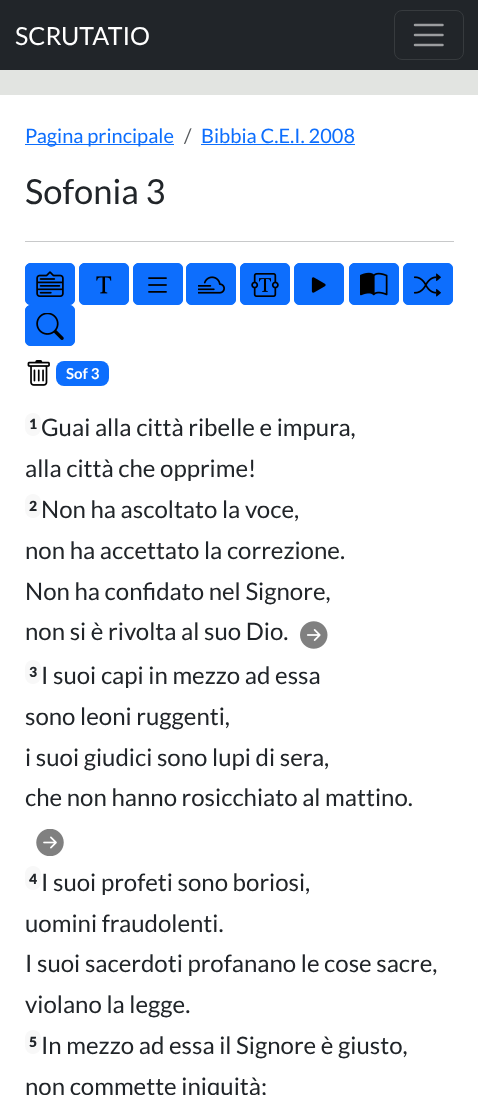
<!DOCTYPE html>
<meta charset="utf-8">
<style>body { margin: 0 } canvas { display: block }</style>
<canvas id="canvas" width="478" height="1095"></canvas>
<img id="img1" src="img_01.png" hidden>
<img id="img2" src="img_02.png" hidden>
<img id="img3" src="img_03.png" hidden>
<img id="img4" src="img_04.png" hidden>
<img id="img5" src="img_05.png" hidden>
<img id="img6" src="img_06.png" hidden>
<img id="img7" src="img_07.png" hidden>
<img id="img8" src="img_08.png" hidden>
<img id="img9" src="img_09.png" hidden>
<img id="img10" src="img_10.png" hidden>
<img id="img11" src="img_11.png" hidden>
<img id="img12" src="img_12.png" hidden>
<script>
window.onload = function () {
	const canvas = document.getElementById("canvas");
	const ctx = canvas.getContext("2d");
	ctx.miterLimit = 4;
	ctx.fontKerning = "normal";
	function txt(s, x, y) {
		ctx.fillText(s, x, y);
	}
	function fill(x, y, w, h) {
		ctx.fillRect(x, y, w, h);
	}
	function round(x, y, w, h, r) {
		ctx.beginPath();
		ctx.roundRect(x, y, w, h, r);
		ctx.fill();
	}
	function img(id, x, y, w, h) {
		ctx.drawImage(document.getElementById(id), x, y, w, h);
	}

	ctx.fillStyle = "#E2E4E1";
	fill(0, 0, 478, 1095);
	ctx.fillStyle = "#212529";
	fill(0, 0, 478, 70);
	ctx.beginPath();
	ctx.roundRect(394.5, 10.5, 69, 49, 7.5);
	ctx.strokeStyle = "#373B3E";
	ctx.stroke();
	ctx.beginPath();
	ctx.moveTo(415, 25);
	ctx.lineTo(442.5, 25);
	ctx.moveTo(415, 35);
	ctx.lineTo(442.5, 35);
	ctx.moveTo(415, 45);
	ctx.lineTo(442.5, 45);
	ctx.strokeStyle = "#9B9D9F";
	ctx.lineWidth = 2.5;
	ctx.lineCap = "round";
	ctx.stroke();
	ctx.fillStyle = "#FFFFFF";
	fill(0, 95, 478, 1000);
	ctx.fillStyle = "#0D6EFD";
	fill(25, 144, 149, 1);
	fill(201, 144, 154, 1);
	ctx.fillStyle = "#C8C9CA";
	fill(25, 241, 429, 1);
	ctx.fillStyle = "#0D6EFD";
	ctx.beginPath();
	ctx.roundRect(25.5, 263.5, 49, 41, 4.5);
	ctx.fill();
	ctx.strokeStyle = "#0D6EFD";
	ctx.lineWidth = 1;
	ctx.stroke();
	img("img1", 36, 271, 28, 26);
	ctx.beginPath();
	ctx.roundRect(79.5, 263.5, 49, 41, 4.5);
	ctx.fill();
	ctx.stroke();
	img("img2", 96, 276, 16, 18);
	ctx.beginPath();
	ctx.roundRect(133.5, 263.5, 49, 41, 4.5);
	ctx.fill();
	ctx.stroke();
	img("img3", 148, 277, 19, 16);
	ctx.beginPath();
	ctx.roundRect(186.5, 263.5, 49, 41, 4.5);
	ctx.fill();
	ctx.stroke();
	img("img4", 198, 276, 27, 18);
	ctx.beginPath();
	ctx.roundRect(240.5, 263.5, 49, 41, 4.5);
	ctx.fill();
	ctx.stroke();
	img("img5", 251, 273, 28, 24);
	ctx.beginPath();
	ctx.roundRect(294.5, 263.5, 49, 41, 4.5);
	ctx.fill();
	ctx.stroke();
	img("img6", 311, 277, 15, 16);
	ctx.beginPath();
	ctx.roundRect(349.5, 263.5, 49, 41, 4.5);
	ctx.fill();
	ctx.stroke();
	img("img7", 360, 272, 28, 24);
	ctx.beginPath();
	ctx.roundRect(403.5, 263.5, 49, 41, 4.5);
	ctx.fill();
	ctx.stroke();
	img("img8", 414, 273, 27, 24);
	ctx.beginPath();
	ctx.roundRect(25.5, 305.5, 49, 40, 4.5);
	ctx.fill();
	ctx.stroke();
	img("img9", 36, 313, 28, 27);
	img("img10", 27, 360, 23, 26);
	round(56, 361, 53, 25, 8);
	ctx.fillStyle = "#F8F8F8";
	round(25, 413, 16, 23, 8);
	round(25, 494, 16, 24, 8);
	img("img11", 300, 621, 28, 28);
	round(25, 660, 16, 24, 8);
	img("img12", 36, 829, 28, 27);
	round(25, 866, 16, 24, 8);
	round(25, 1030, 16, 24, 8);
	ctx.font = "25px Lato";
	ctx.fillStyle = "#FFFFFF";
	txt("SCRUTATIO", 15, 45);
	ctx.font = "20px Lato";
	ctx.fillStyle = "#0D6EFD";
	txt("Pagina principale", 25, 143);
	ctx.fillStyle = "#595C5F";
	txt("/", 184, 143);
	ctx.fillStyle = "#0D6EFD";
	txt("Bibbia C.E.I. 2008", 201, 143);
	ctx.font = "34.5px Lato";
	ctx.fillStyle = "#212529";
	txt("Sofonia 3", 25, 204);
	ctx.font = "bold 15px Lato";
	ctx.fillStyle = "#FFFFFF";
	txt("Sof 3", 66, 379);
	ctx.font = "900 14px Lato";
	ctx.fillStyle = "#212529";
	txt("1", 29, 429);
	ctx.font = "24px Lato";
	txt("Guai alla città ribelle e impura,", 41, 436);
	txt("alla città che opprime!", 25, 477);
	ctx.font = "900 14px Lato";
	txt("2", 29, 511);
	ctx.font = "24px Lato";
	txt("Non ha ascoltato la voce,", 41, 518);
	txt("non ha accettato la correzione.", 25, 559);
	txt("Non ha confidato nel Signore,", 25, 600);
	txt("non si è rivolta al suo Dio.", 25, 640);
	ctx.font = "900 14px Lato";
	txt("3", 29, 677);
	ctx.font = "24px Lato";
	txt("I suoi capi in mezzo ad essa", 41, 684);
	txt("sono leoni ruggenti,", 25, 725);
	txt("i suoi giudici sono lupi di sera,", 25, 766);
	txt("che non hanno rosicchiato al mattino.", 25, 806);
	ctx.font = "900 14px Lato";
	txt("4", 29, 884);
	ctx.font = "24px Lato";
	txt("I suoi profeti sono boriosi,", 41, 891);
	txt("uomini fraudolenti.", 25, 932);
	txt("I suoi sacerdoti profanano le cose sacre,", 25, 972);
	txt("violano la legge.", 25, 1013);
	ctx.font = "900 14px Lato";
	txt("5", 29, 1047);
	ctx.font = "24px Lato";
	txt("In mezzo ad essa il Signore è giusto,", 41, 1054);
	txt("non commette iniquità;", 25, 1095);
};
</script>
